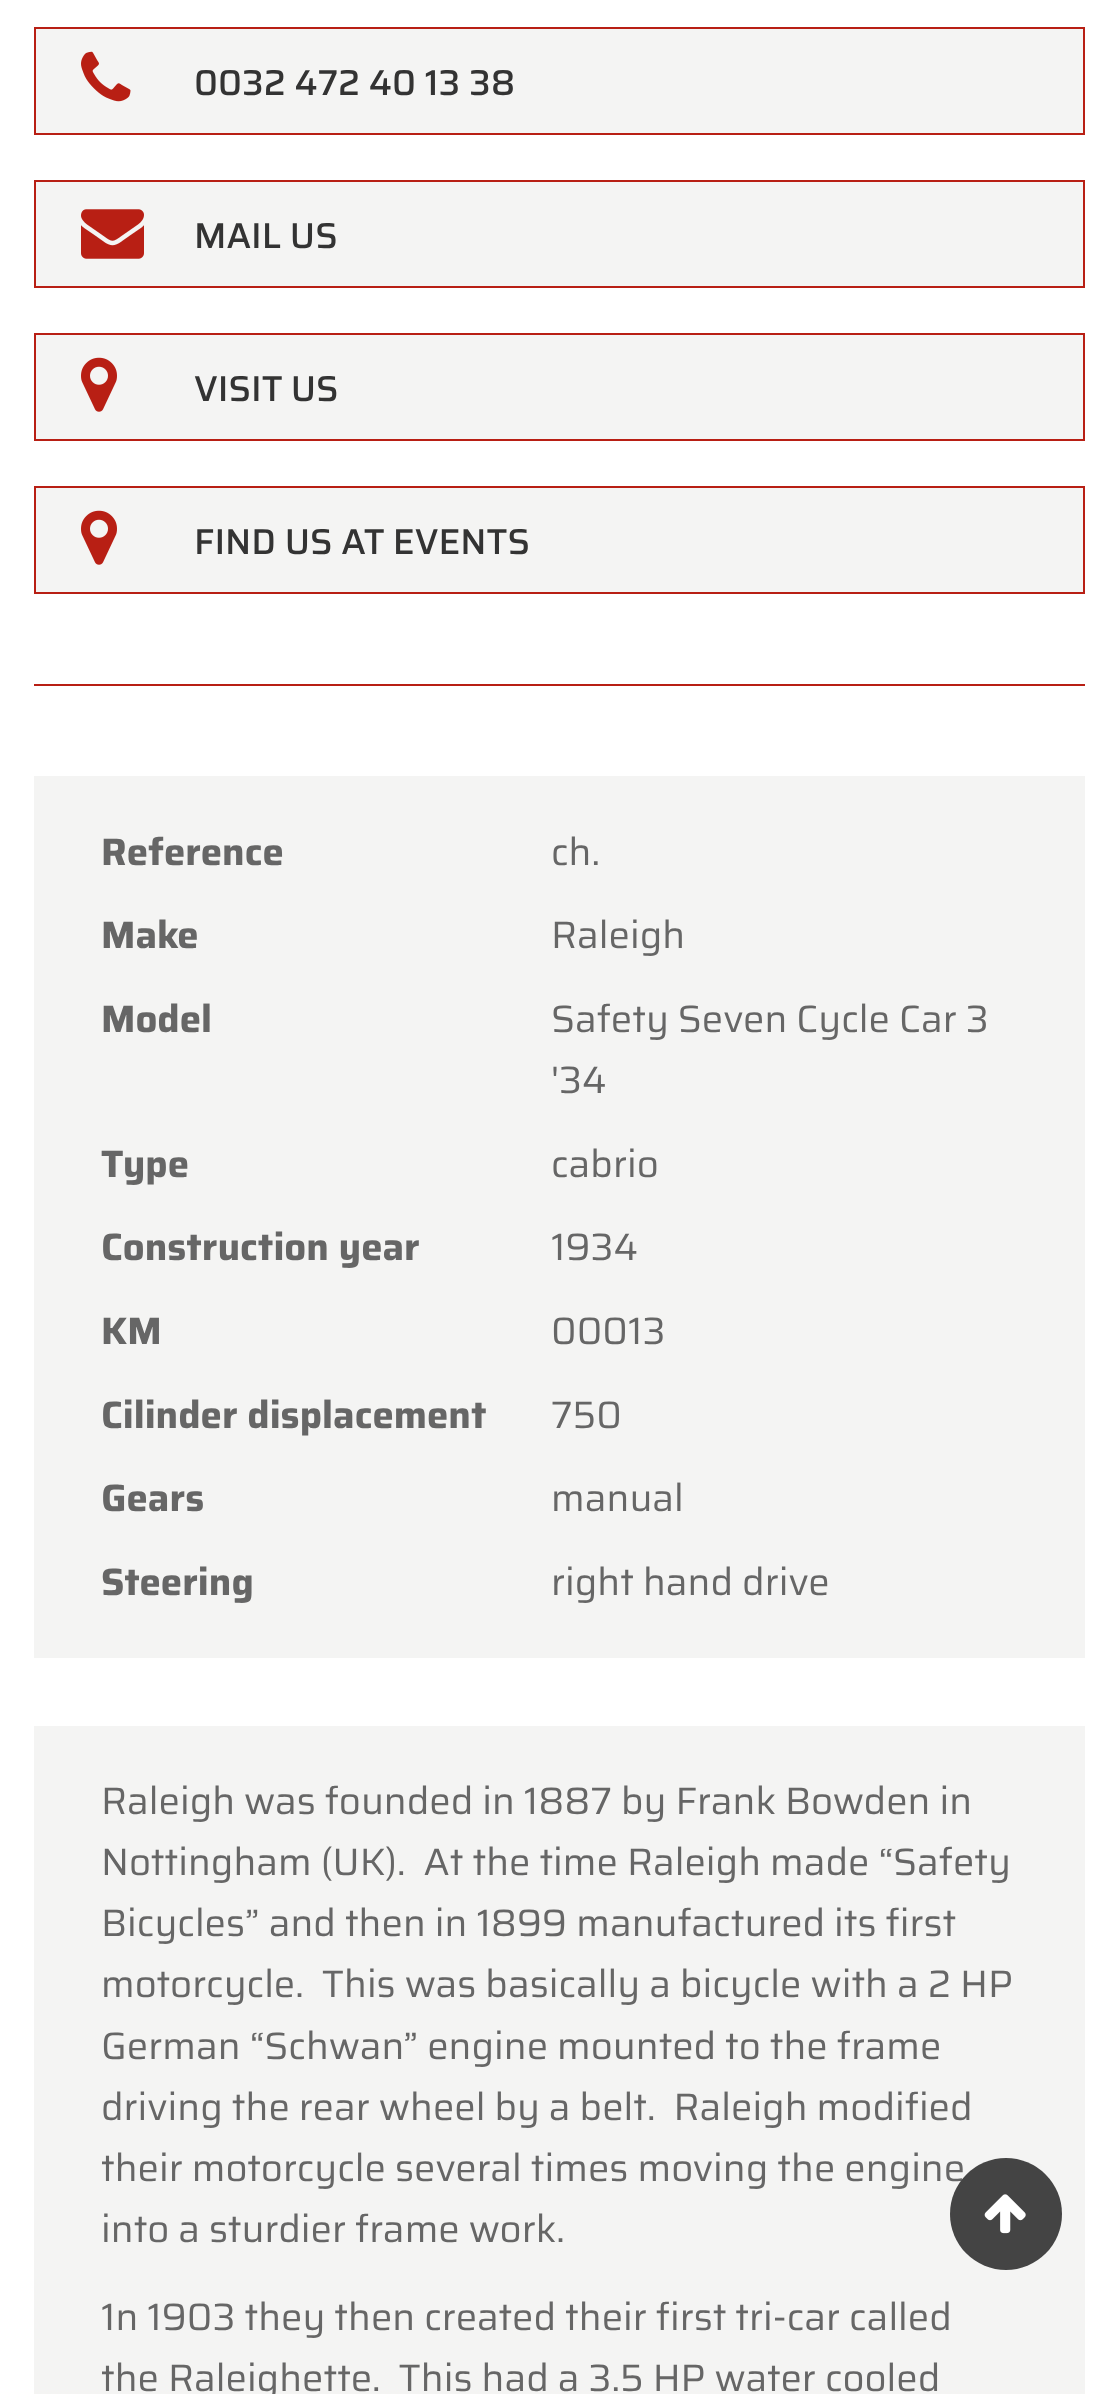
<!DOCTYPE html>
<meta charset="utf-8">
<style>body { margin: 0 } canvas { display: block }</style>
<canvas id="canvas" width="1117" height="2394"></canvas>
<img id="img1" src="img_01.png" hidden>
<img id="img2" src="img_02.png" hidden>
<img id="img3" src="img_03.png" hidden>
<img id="img4" src="img_04.png" hidden>
<script>
window.onload = function () {
	const canvas = document.getElementById("canvas");
	const ctx = canvas.getContext("2d");
	ctx.miterLimit = 4;
	ctx.fontKerning = "normal";
	function txt(s, x, y) {
		ctx.fillText(s, x, y);
	}
	function fill(x, y, w, h) {
		ctx.fillRect(x, y, w, h);
	}
	function img(id, x, y, w, h) {
		ctx.drawImage(document.getElementById(id), x, y, w, h);
	}

	ctx.fillStyle = "#FFFFFF";
	fill(0, 0, 1117, 2394);
	ctx.fillStyle = "#F4F4F3";
	ctx.beginPath();
	ctx.rect(35, 28, 1049, 106);
	ctx.fill();
	ctx.strokeStyle = "#B81F14";
	ctx.lineWidth = 2;
	ctx.stroke();
	img("img1", 81, 51, 50, 51);
	ctx.beginPath();
	ctx.rect(35, 181, 1049, 106);
	ctx.fill();
	ctx.stroke();
	img("img2", 81, 209, 63, 50);
	ctx.beginPath();
	ctx.rect(35, 334, 1049, 106);
	ctx.fill();
	ctx.stroke();
	img("img3", 81, 357, 36, 55);
	ctx.beginPath();
	ctx.rect(35, 487, 1049, 106);
	ctx.fill();
	ctx.stroke();
	img("img3", 81, 510, 36, 55);
	ctx.fillStyle = "#B81F14";
	fill(34, 684, 1051, 2);
	ctx.fillStyle = "#F4F4F3";
	fill(34, 776, 1051, 882);
	fill(34, 1726, 1051, 668);
	ctx.font = "500 36px Saira";
	ctx.fillStyle = "#333333";
	txt("0032 472 40 13 38", 194, 95);
	txt("MAIL US", 194, 248);
	txt("VISIT US", 194, 401);
	txt("FIND US AT EVENTS", 194, 554);
	ctx.font = "bold 38.25px Saira";
	ctx.fillStyle = "#666666";
	txt("Reference", 101, 865);
	ctx.font = "38.25px Saira";
	txt("ch.", 551, 865);
	ctx.font = "bold 38.25px Saira";
	txt("Make", 101, 948);
	ctx.font = "38.25px Saira";
	txt("Raleigh", 551, 948);
	ctx.font = "bold 38.25px Saira";
	txt("Model", 101, 1032);
	ctx.font = "38.25px Saira";
	txt("Safety Seven Cycle Car 3", 551, 1032);
	txt("'34", 551, 1093);
	ctx.font = "bold 38.25px Saira";
	txt("Type", 101, 1177);
	ctx.font = "38.25px Saira";
	txt("cabrio", 551, 1177);
	ctx.font = "bold 38.25px Saira";
	txt("Construction year", 101, 1260);
	ctx.font = "38.25px Saira";
	txt("1934", 551, 1260);
	ctx.font = "bold 38.25px Saira";
	txt("KM", 101, 1344);
	ctx.font = "38.25px Saira";
	txt("00013", 551, 1344);
	ctx.font = "bold 38.25px Saira";
	txt("Cilinder displacement", 101, 1428);
	ctx.font = "38.25px Saira";
	txt("750", 551, 1428);
	ctx.font = "bold 38.25px Saira";
	txt("Gears", 101, 1511);
	ctx.font = "38.25px Saira";
	txt("manual", 551, 1511);
	ctx.font = "bold 38.25px Saira";
	txt("Steering", 101, 1595);
	ctx.font = "38.25px Saira";
	txt("right hand drive", 551, 1595);
	txt("Raleigh was founded in 1887 by Frank Bowden in", 101, 1814);
	txt("Nottingham (UK).  At the time Raleigh made “Safety", 101, 1875);
	txt("Bicycles” and then in 1899 manufactured its first", 101, 1936);
	txt("motorcycle.  This was basically a bicycle with a 2 HP", 101, 1997);
	txt("German “Schwan” engine mounted to the frame", 101, 2059);
	txt("driving the rear wheel by a belt.  Raleigh modified", 101, 2120);
	txt("their motorcycle several times moving the engine", 101, 2181);
	txt("into a sturdier frame work.", 101, 2242);
	txt("1n 1903 they then created their first tri-car called", 101, 2330);
	txt("the Raleighette.  This had a 3.5 HP water cooled", 101, 2391);
	ctx.fillStyle = "#444444";
	ctx.beginPath();
	ctx.arc(1006, 2214, 56, 0, Math.PI * 2);
	ctx.fill();
	img("img4", 984, 2194, 42, 40);
};
</script>
